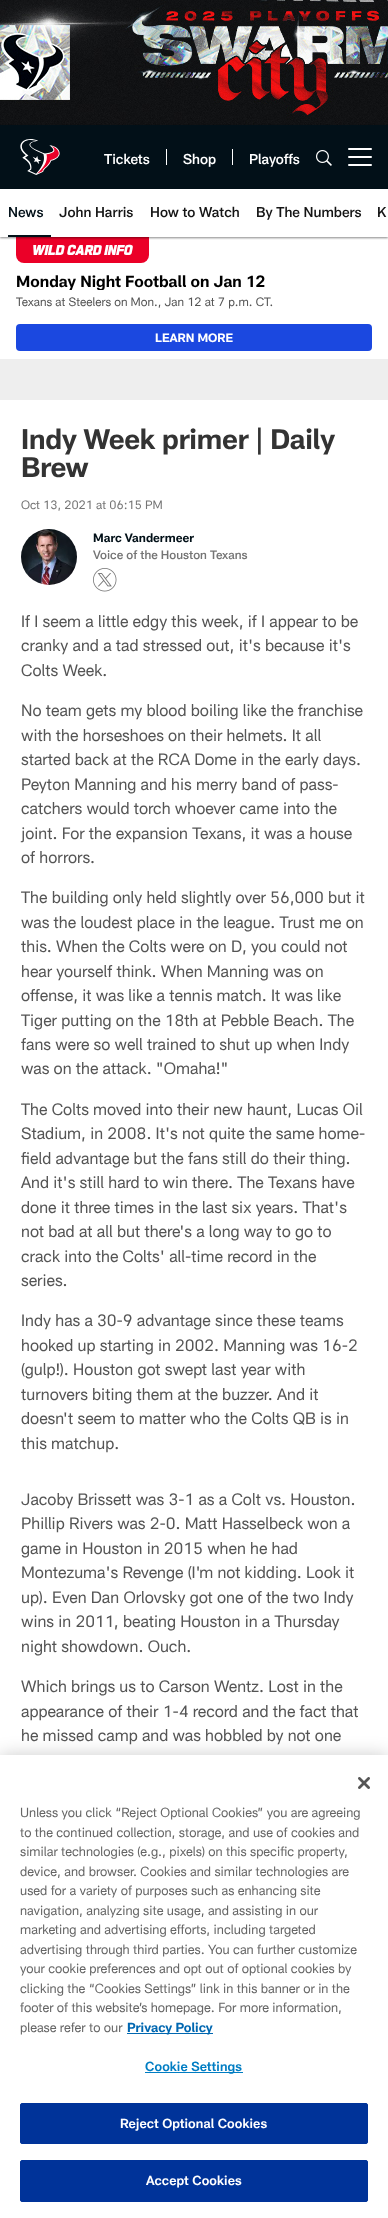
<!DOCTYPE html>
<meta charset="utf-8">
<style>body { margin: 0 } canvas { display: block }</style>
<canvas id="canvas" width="388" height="2218"></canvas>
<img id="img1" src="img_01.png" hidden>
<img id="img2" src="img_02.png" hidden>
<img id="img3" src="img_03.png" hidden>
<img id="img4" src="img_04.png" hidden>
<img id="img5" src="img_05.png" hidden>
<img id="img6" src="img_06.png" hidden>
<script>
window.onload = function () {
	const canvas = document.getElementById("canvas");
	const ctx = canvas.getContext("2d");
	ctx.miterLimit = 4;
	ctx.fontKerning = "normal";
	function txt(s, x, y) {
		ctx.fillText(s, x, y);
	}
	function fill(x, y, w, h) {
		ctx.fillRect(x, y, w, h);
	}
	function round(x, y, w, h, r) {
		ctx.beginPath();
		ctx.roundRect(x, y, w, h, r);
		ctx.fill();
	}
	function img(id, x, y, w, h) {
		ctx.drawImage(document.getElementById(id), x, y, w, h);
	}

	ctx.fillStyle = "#EEEEEE";
	fill(0, 0, 388, 2218);
	img("img1", 0, 0, 388, 125);
	ctx.fillStyle = "rgba(0, 0, 0, 0.47)";
	ctx.filter = "blur(1px)";
	ctx.beginPath();
	ctx.rect(0, 126, 388, 64);
	ctx.fill();
	ctx.filter = "none";
	ctx.fillStyle = "#021018";
	fill(0, 125, 388, 64);
	img("img2", 20, 139, 40, 36);
	ctx.fillStyle = "#FFFFFF";
	fill(166, 149, 1, 16);
	fill(232, 149, 1, 16);
	img("img3", 316, 150, 16, 16);
	round(348, 156, 24, 2, 1);
	round(348, 148, 24, 2, 1);
	round(348, 164, 24, 2, 1);
	fill(0, 237, 388, 122);
	ctx.fillStyle = "#EB0028";
	ctx.beginPath();
	ctx.roundRect(16, 237, 133, 26, [0, 0, 8, 8]);
	ctx.fill();
	ctx.fillStyle = "rgba(0, 0, 0, 0.47)";
	ctx.filter = "blur(1px)";
	ctx.beginPath();
	ctx.rect(0, 190, 388, 48);
	ctx.fill();
	ctx.filter = "none";
	ctx.fillStyle = "#FFFFFF";
	fill(0, 189, 388, 48);
	ctx.fillStyle = "#021018";
	fill(8, 235, 43, 2);
	ctx.fillStyle = "#1B48E0";
	round(16, 324, 356, 27, 4);
	ctx.fillStyle = "#FFFFFF";
	fill(0, 400, 388, 1355);
	img("img4", 21, 529, 56, 56);
	img("img5", 93, 568, 24, 24);
	ctx.fillStyle = "rgba(0, 0, 0, 0.2)";
	ctx.filter = "blur(9px)";
	ctx.beginPath();
	ctx.rect(0, 1755, 388, 463);
	ctx.fill();
	ctx.filter = "none";
	ctx.fillStyle = "#FFFFFF";
	fill(0, 1755, 388, 463);
	img("img6", 358, 1777, 12, 12);
	ctx.fillStyle = "#0067B1";
	fill(127, 2033, 86, 1);
	ctx.fillStyle = "#007DC3";
	fill(145, 2072, 98, 1);
	ctx.fillStyle = "#003399";
	ctx.beginPath();
	ctx.roundRect(20.5, 2103.5, 347, 40, 1.5);
	ctx.fill();
	ctx.strokeStyle = "#003399";
	ctx.stroke();
	ctx.beginPath();
	ctx.roundRect(20.5, 2160.5, 347, 41, 1.5);
	ctx.fill();
	ctx.stroke();
	ctx.font = "500 14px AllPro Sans";
	ctx.fillStyle = "#FFFFFF";
	txt("Tickets", 104, 164);
	txt("Shop", 183, 164);
	txt("Playoffs", 249, 164);
	ctx.fillStyle = "#021018";
	txt("News", 8, 217);
	ctx.fillStyle = "#151515";
	txt("John Harris", 59, 217);
	txt("How to Watch", 150, 217);
	txt("By The Numbers", 256, 217);
	txt("K", 377, 217);
	ctx.letterSpacing = "0.25px";
	ctx.font = "italic bold 14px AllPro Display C";
	ctx.fillStyle = "#FFFFFF";
	txt("WILD CARD INFO", 32, 255);
	ctx.save();
	ctx.beginPath();
	ctx.rect(16, 271, 356, 19);
	ctx.clip();
	ctx.letterSpacing = "0px";
	ctx.font = "bold 16px AllPro Sans";
	ctx.fillStyle = "#000000";
	txt("Monday Night Football on Jan 12", 16, 287);
	ctx.restore();
	ctx.letterSpacing = "0px";
	ctx.font = "12px AllPro Sans";
	ctx.fillStyle = "#555555";
	txt("Texans at Steelers on Mon., Jan 12 at 7 p.m. CT.", 16, 306);
	ctx.font = "bold 12px AllPro Sans";
	ctx.fillStyle = "#FFFFFF";
	txt("LEARN MORE", 155, 342);
	ctx.letterSpacing = "-0.2px";
	ctx.font = "bold 28px AllPro Sans";
	ctx.fillStyle = "#333333";
	txt("Indy Week primer | Daily", 21, 449);
	txt("Brew", 21, 477);
	ctx.letterSpacing = "0px";
	ctx.font = "12px AllPro Sans";
	ctx.fillStyle = "#757575";
	txt("Oct 13, 2021 at 06:15 PM", 21, 509);
	ctx.font = "bold 12px AllPro Sans";
	ctx.fillStyle = "#021018";
	txt("Marc Vandermeer", 93, 542);
	ctx.font = "500 12px AllPro Sans";
	ctx.fillStyle = "#757575";
	txt("Voice of the Houston Texans", 93, 559);
	ctx.font = "16.3px AllPro Sans";
	ctx.fillStyle = "#555555";
	txt("If I seem a little edgy this week, if I appear to be", 21, 627);
	txt("cranky and a tad stressed out, it's because it's", 21, 651);
	txt("Colts Week.", 21, 676);
	txt("No team gets my blood boiling like the franchise", 21, 716);
	txt("with the horseshoes on their helmets. It all", 21, 741);
	txt("started back at the RCA Dome in the early days.", 21, 765);
	txt("Peyton Manning and his merry band of pass-", 21, 790);
	txt("catchers would torch whoever came into the", 21, 814);
	txt("joint. For the expansion Texans, it was a house", 21, 839);
	txt("of horrors.", 21, 863);
	txt("The building only held slightly over 56,000 but it", 21, 903);
	txt("was the loudest place in the league. Trust me on", 21, 928);
	txt("this. When the Colts were on D, you could not", 21, 952);
	txt("hear yourself think. When Manning was on", 21, 977);
	txt("offense, it was like a tennis match. It was like", 21, 1001);
	txt("Tiger putting on the 18th at Pebble Beach. The", 21, 1026);
	txt("fans were so well trained to shut up when Indy", 21, 1050);
	txt("was on the attack. \"Omaha!\"", 21, 1074);
	txt("The Colts moved into their new haunt, Lucas Oil", 21, 1115);
	txt("Stadium, in 2008. It's not quite the same home-", 21, 1139);
	txt("field advantage but the fans still do their thing.", 21, 1164);
	txt("And it's still hard to win there. The Texans have", 21, 1188);
	txt("done it three times in the last six years. That's", 21, 1213);
	txt("not bad at all but there's a long way to go to", 21, 1237);
	txt("crack into the Colts' all-time record in the", 21, 1262);
	txt("series.", 21, 1286);
	txt("Indy has a 30-9 advantage since these teams", 21, 1326);
	txt("hooked up starting in 2002. Manning was 16-2", 21, 1351);
	txt("(gulp!). Houston got swept last year with", 21, 1375);
	txt("turnovers biting them at the buzzer. And it", 21, 1400);
	txt("doesn't seem to matter who the Colts QB is in", 21, 1424);
	txt("this matchup.", 21, 1449);
	txt("Jacoby Brissett was 3-1 as a Colt vs. Houston.", 21, 1505);
	txt("Phillip Rivers was 2-0. Matt Hasselbeck won a", 21, 1529);
	txt("game in Houston in 2015 when he had", 21, 1554);
	txt("Montezuma's Revenge (I'm not kidding. Look it", 21, 1578);
	txt("up). Even Dan Orlovsky got one of the two Indy", 21, 1603);
	txt("wins in 2011, beating Houston in a Thursday", 21, 1627);
	txt("night showdown. Ouch.", 21, 1652);
	txt("Which brings us to Carson Wentz. Lost in the", 21, 1692);
	txt("appearance of their 1-4 record and the fact that", 21, 1717);
	txt("he missed camp and was hobbled by not one", 21, 1741);
	ctx.font = "13px AllPro Sans";
	ctx.fillStyle = "#666666";
	txt("Unless you click “Reject Optional Cookies” you are agreeing", 20, 1817);
	txt("to the continued collection, storage, and use of cookies and", 20, 1837);
	txt("similar technologies (e.g., pixels) on this specific property,", 20, 1856);
	txt("device, and browser. Cookies and similar technologies are", 20, 1876);
	txt("used for a variety of purposes such as enhancing site", 20, 1895);
	txt("navigation, analyzing site usage, and assisting in our", 20, 1915);
	txt("marketing and advertising efforts, including targeted", 20, 1934);
	txt("advertising through third parties. You can further customize", 20, 1954);
	txt("your cookie preferences and opt out of optional cookies by", 20, 1973);
	txt("clicking the “Cookies Settings” link in this banner or in the", 20, 1993);
	txt("footer of this website’s homepage. For more information,", 20, 2012);
	txt("please refer to our", 20, 2032);
	ctx.font = "bold 13px AllPro Sans";
	ctx.fillStyle = "#0067B1";
	txt("Privacy Policy", 127, 2032);
	ctx.letterSpacing = "0.1px";
	ctx.font = "600 13px AllPro Sans";
	ctx.fillStyle = "#007DC3";
	txt("Cookie Settings", 145, 2071);
	ctx.fillStyle = "#FFFFFF";
	txt("Reject Optional Cookies", 120, 2128);
	txt("Accept Cookies", 146, 2185);
};
</script>
